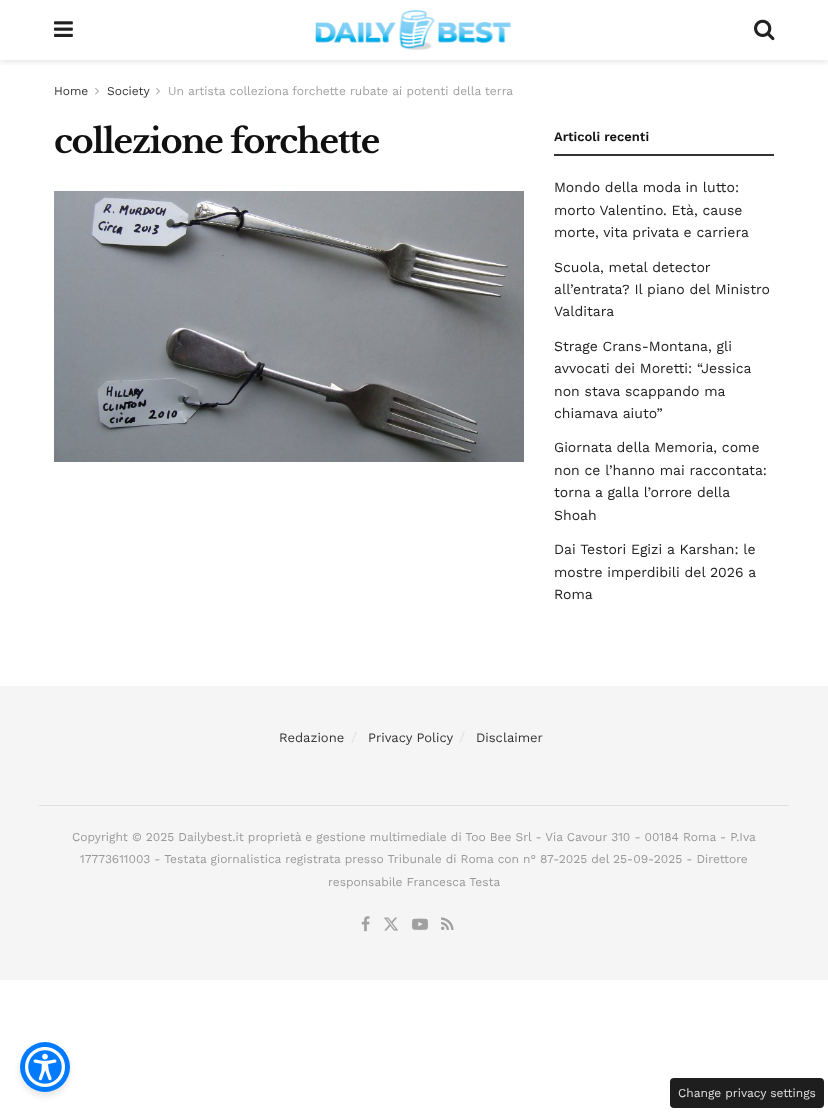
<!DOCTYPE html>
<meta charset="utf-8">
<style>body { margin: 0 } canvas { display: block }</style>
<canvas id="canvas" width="828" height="1112"></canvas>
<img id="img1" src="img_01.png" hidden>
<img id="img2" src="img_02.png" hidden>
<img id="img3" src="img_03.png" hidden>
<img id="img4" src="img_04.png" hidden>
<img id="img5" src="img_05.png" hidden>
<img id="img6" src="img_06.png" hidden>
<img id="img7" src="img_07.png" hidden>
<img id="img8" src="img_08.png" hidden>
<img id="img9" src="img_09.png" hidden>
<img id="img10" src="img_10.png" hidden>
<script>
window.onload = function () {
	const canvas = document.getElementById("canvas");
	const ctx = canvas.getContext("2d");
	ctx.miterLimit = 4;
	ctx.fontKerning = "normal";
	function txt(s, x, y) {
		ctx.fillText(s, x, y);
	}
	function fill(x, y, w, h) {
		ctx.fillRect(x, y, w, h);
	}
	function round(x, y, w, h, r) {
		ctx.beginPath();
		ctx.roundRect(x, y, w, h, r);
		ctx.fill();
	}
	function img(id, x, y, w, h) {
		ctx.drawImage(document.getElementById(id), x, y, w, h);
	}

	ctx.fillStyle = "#FFFFFF";
	fill(0, 0, 828, 1112);
	ctx.save();
	ctx.beginPath();
	ctx.rect(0, 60, 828, 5);
	ctx.clip();
	ctx.fillStyle = "rgba(0, 0, 0, 0.1)";
	ctx.filter = "blur(3px)";
	ctx.beginPath();
	ctx.rect(0, 2, 828, 60);
	ctx.fill();
	ctx.filter = "none";
	ctx.restore();
	img("img1", 54, 21, 19, 16);
	img("img2", 315, 10, 197, 40);
	img("img3", 754, 19, 21, 22);
	img("img4", 95, 87, 4, 8);
	img("img4", 156, 87, 4, 8);
	img("img5", 54, 191, 470, 271);
	ctx.fillStyle = "#333333";
	fill(554, 154, 220, 2);
	ctx.fillStyle = "#F5F5F5";
	fill(0, 686, 828, 294);
	ctx.fillStyle = "#E0E0E0";
	fill(39, 805, 750, 1);
	img("img6", 361, 916, 9, 16);
	img("img7", 384, 917, 14, 14);
	img("img8", 412, 918, 16, 12);
	img("img9", 441, 917, 13, 13);
	ctx.fillStyle = "rgba(0, 0, 0, 0.1)";
	ctx.filter = "blur(3px)";
	ctx.beginPath();
	ctx.roundRect(20, 1046, 50, 50, 25);
	ctx.fill();
	ctx.filter = "none";
	ctx.fillStyle = "#007BFF";
	ctx.beginPath();
	ctx.arc(45, 1067, 25, 0, Math.PI * 2);
	ctx.fill();
	img("img10", 25, 1047, 40, 40);
	ctx.fillStyle = "#1E1E1E";
	round(670, 1078, 154, 30, 4);
	ctx.font = "12px Work Sans";
	ctx.fillStyle = "#333333";
	txt("Home", 54, 95);
	txt("Society", 107, 95);
	ctx.fillStyle = "#A0A0A0";
	txt("Un artista colleziona forchette rubate ai potenti della terra", 168, 95);
	ctx.letterSpacing = "-1.3px";
	ctx.font = "bold 33.5px Libre Baskerville";
	ctx.fillStyle = "#111111";
	txt("collezione forchette", 54, 153);
	ctx.letterSpacing = "0px";
	ctx.font = "600 13px Work Sans";
	txt("Articoli recenti", 554, 141);
	ctx.font = "14px Work Sans";
	ctx.fillStyle = "#212121";
	txt("Mondo della moda in lutto:", 554, 192);
	txt("morto Valentino. Età, cause", 554, 215);
	txt("morte, vita privata e carriera", 554, 237);
	txt("Scuola, metal detector", 554, 272);
	txt("all’entrata? Il piano del Ministro", 554, 294);
	txt("Valditara", 554, 316);
	txt("Strage Crans-Montana, gli", 554, 351);
	txt("avvocati dei Moretti: “Jessica", 554, 373);
	txt("non stava scappando ma", 554, 396);
	txt("chiamava aiuto”", 554, 418);
	txt("Giornata della Memoria, come", 554, 452);
	txt("non ce l’hanno mai raccontata:", 554, 475);
	txt("torna a galla l’orrore della", 554, 497);
	txt("Shoah", 554, 520);
	txt("Dai Testori Egizi a Karshan: le", 554, 554);
	txt("mostre imperdibili del 2026 a", 554, 577);
	txt("Roma", 554, 599);
	ctx.font = "13px Work Sans";
	ctx.fillStyle = "#333333";
	txt("Redazione", 279, 742);
	ctx.font = "14px Work Sans";
	ctx.fillStyle = "#E0E0E0";
	txt("/", 351, 742);
	ctx.font = "13px Work Sans";
	ctx.fillStyle = "#333333";
	txt("Privacy Policy", 368, 742);
	ctx.font = "14px Work Sans";
	ctx.fillStyle = "#E0E0E0";
	txt("/", 459, 742);
	ctx.font = "13px Work Sans";
	ctx.fillStyle = "#333333";
	txt("Disclaimer", 476, 742);
	ctx.font = "12px Work Sans";
	ctx.fillStyle = "#999999";
	txt("Copyright © 2025 Dailybest.it proprietà e gestione multimediale di Too Bee Srl - Via Cavour 310 - 00184 Roma - P.Iva", 72, 841);
	txt("17773611003 - Testata giornalistica registrata presso Tribunale di Roma con n° 87-2025 del 25-09-2025 - Direttore", 80, 863);
	txt("responsabile Francesca Testa", 328, 886);
	ctx.fillStyle = "#E0E0E0";
	txt("Change privacy settings", 678, 1097);
};
</script>
